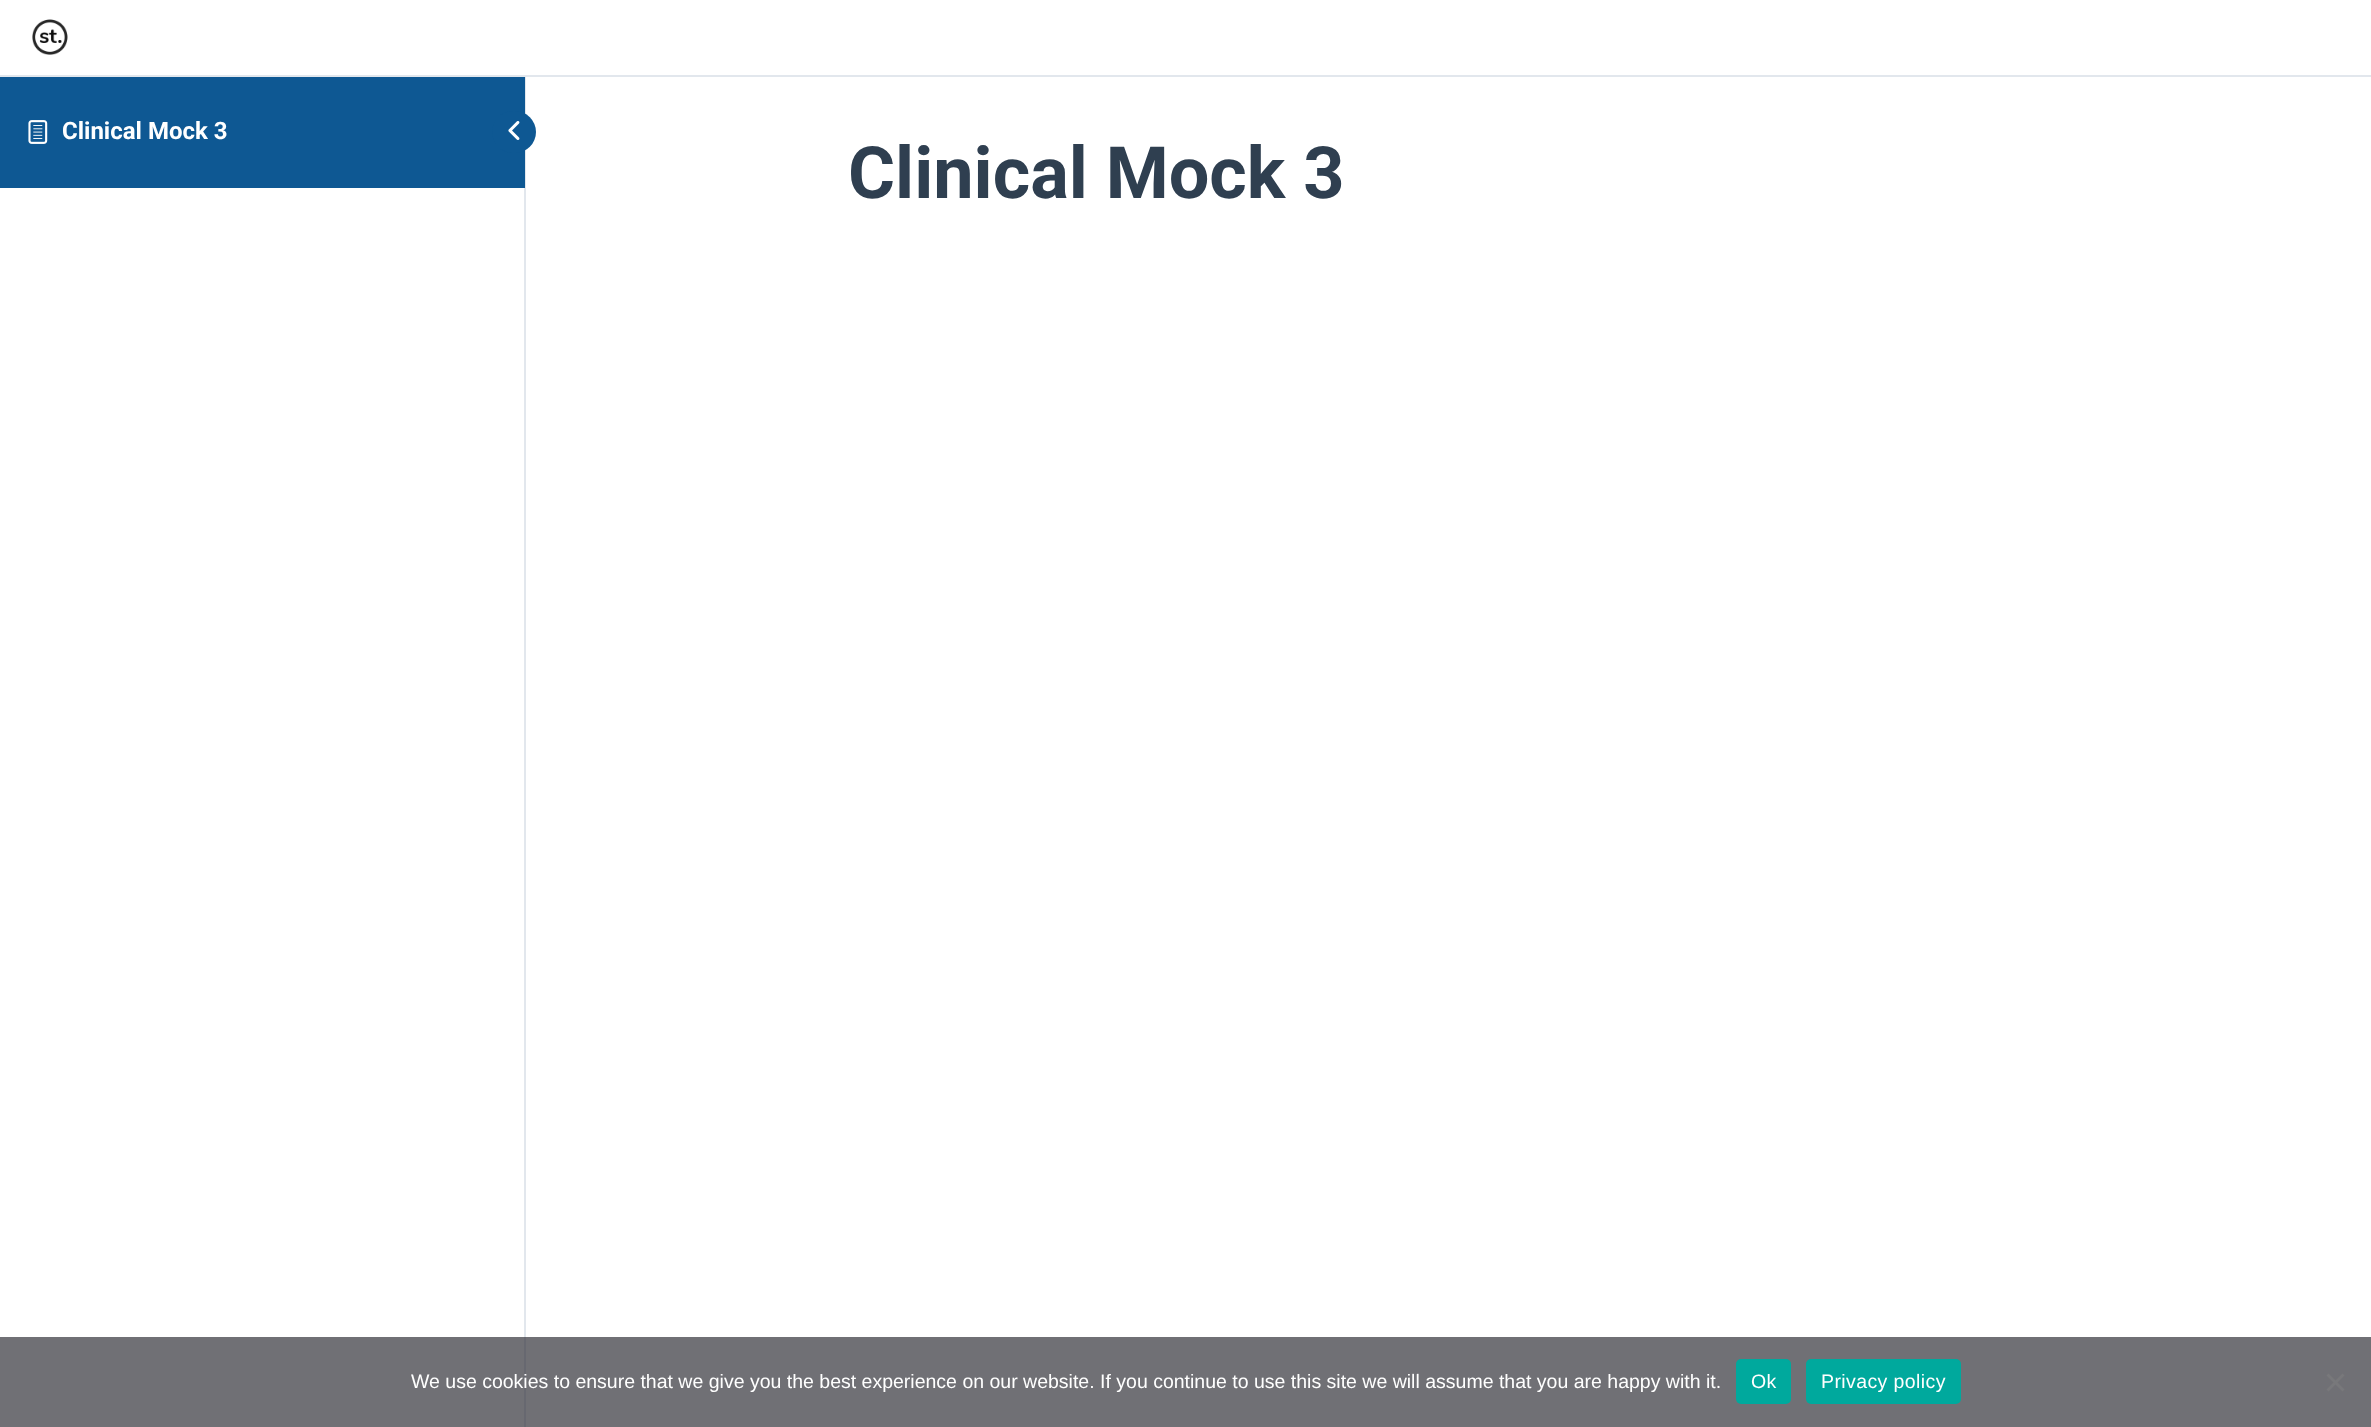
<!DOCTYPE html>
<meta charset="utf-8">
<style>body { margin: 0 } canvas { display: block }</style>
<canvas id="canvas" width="2371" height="1427"></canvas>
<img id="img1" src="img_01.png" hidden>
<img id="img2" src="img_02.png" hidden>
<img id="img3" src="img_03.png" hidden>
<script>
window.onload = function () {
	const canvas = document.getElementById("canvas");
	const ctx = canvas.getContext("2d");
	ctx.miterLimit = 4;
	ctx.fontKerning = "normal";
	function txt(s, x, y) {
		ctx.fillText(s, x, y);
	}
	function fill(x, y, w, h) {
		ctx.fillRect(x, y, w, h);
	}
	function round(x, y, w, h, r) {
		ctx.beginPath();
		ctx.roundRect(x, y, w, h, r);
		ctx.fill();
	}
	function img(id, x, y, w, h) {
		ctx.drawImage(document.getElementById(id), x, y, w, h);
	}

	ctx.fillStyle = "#FFFFFF";
	fill(0, 0, 2371, 1427);
	ctx.fillStyle = "#707075";
	fill(0, 1337, 2371, 90);
	ctx.fillStyle = "#E2E7ED";
	fill(524, 77, 2, 1260);
	ctx.fillStyle = "#676870";
	fill(524, 1337, 2, 90);
	ctx.fillStyle = "#0E5893";
	fill(0, 77, 525, 111);
	img("img1", 28, 120, 20, 24);
	round(492, 111, 44, 42, 21);
	img("img2", 508, 121, 12, 19);
	ctx.fillStyle = "#E2E7ED";
	fill(0, 75, 2371, 2);
	img("img3", 32, 19, 36, 36);
	ctx.fillStyle = "#00A99D";
	round(1736, 1359, 55, 45, 5);
	round(1806, 1359, 155, 45, 5);
	ctx.fillStyle = "#78787B";
	ctx.beginPath();
	ctx.moveTo(2342.5, 1373.5);
	ctx.lineTo(2344.5, 1375.5);
	ctx.lineTo(2328.5, 1391.5);
	ctx.lineTo(2326.5, 1389.5);
	ctx.closePath();
	ctx.fill();
	ctx.beginPath();
	ctx.moveTo(2326.5, 1375.5);
	ctx.lineTo(2328.5, 1373.5);
	ctx.lineTo(2344.5, 1389.5);
	ctx.lineTo(2342.5, 1391.5);
	ctx.closePath();
	ctx.fill();
	ctx.font = "bold 24px Roboto";
	ctx.fillStyle = "#FFFFFF";
	txt("Clinical Mock 3", 62, 139);
	ctx.font = "bold 72px Roboto";
	ctx.fillStyle = "#2F3F50";
	txt("Clinical Mock 3", 848, 198);
	ctx.font = "19.5px Liberation Sans";
	ctx.fillStyle = "#FFFFFF";
	txt("We use cookies to ensure that we give you the best experience on our website. If you continue to use this site we will assume that you are happy with it.", 411, 1388);
	ctx.letterSpacing = "0.4px";
	txt("Ok", 1751, 1388);
	txt("Privacy policy", 1821, 1388);
};
</script>
